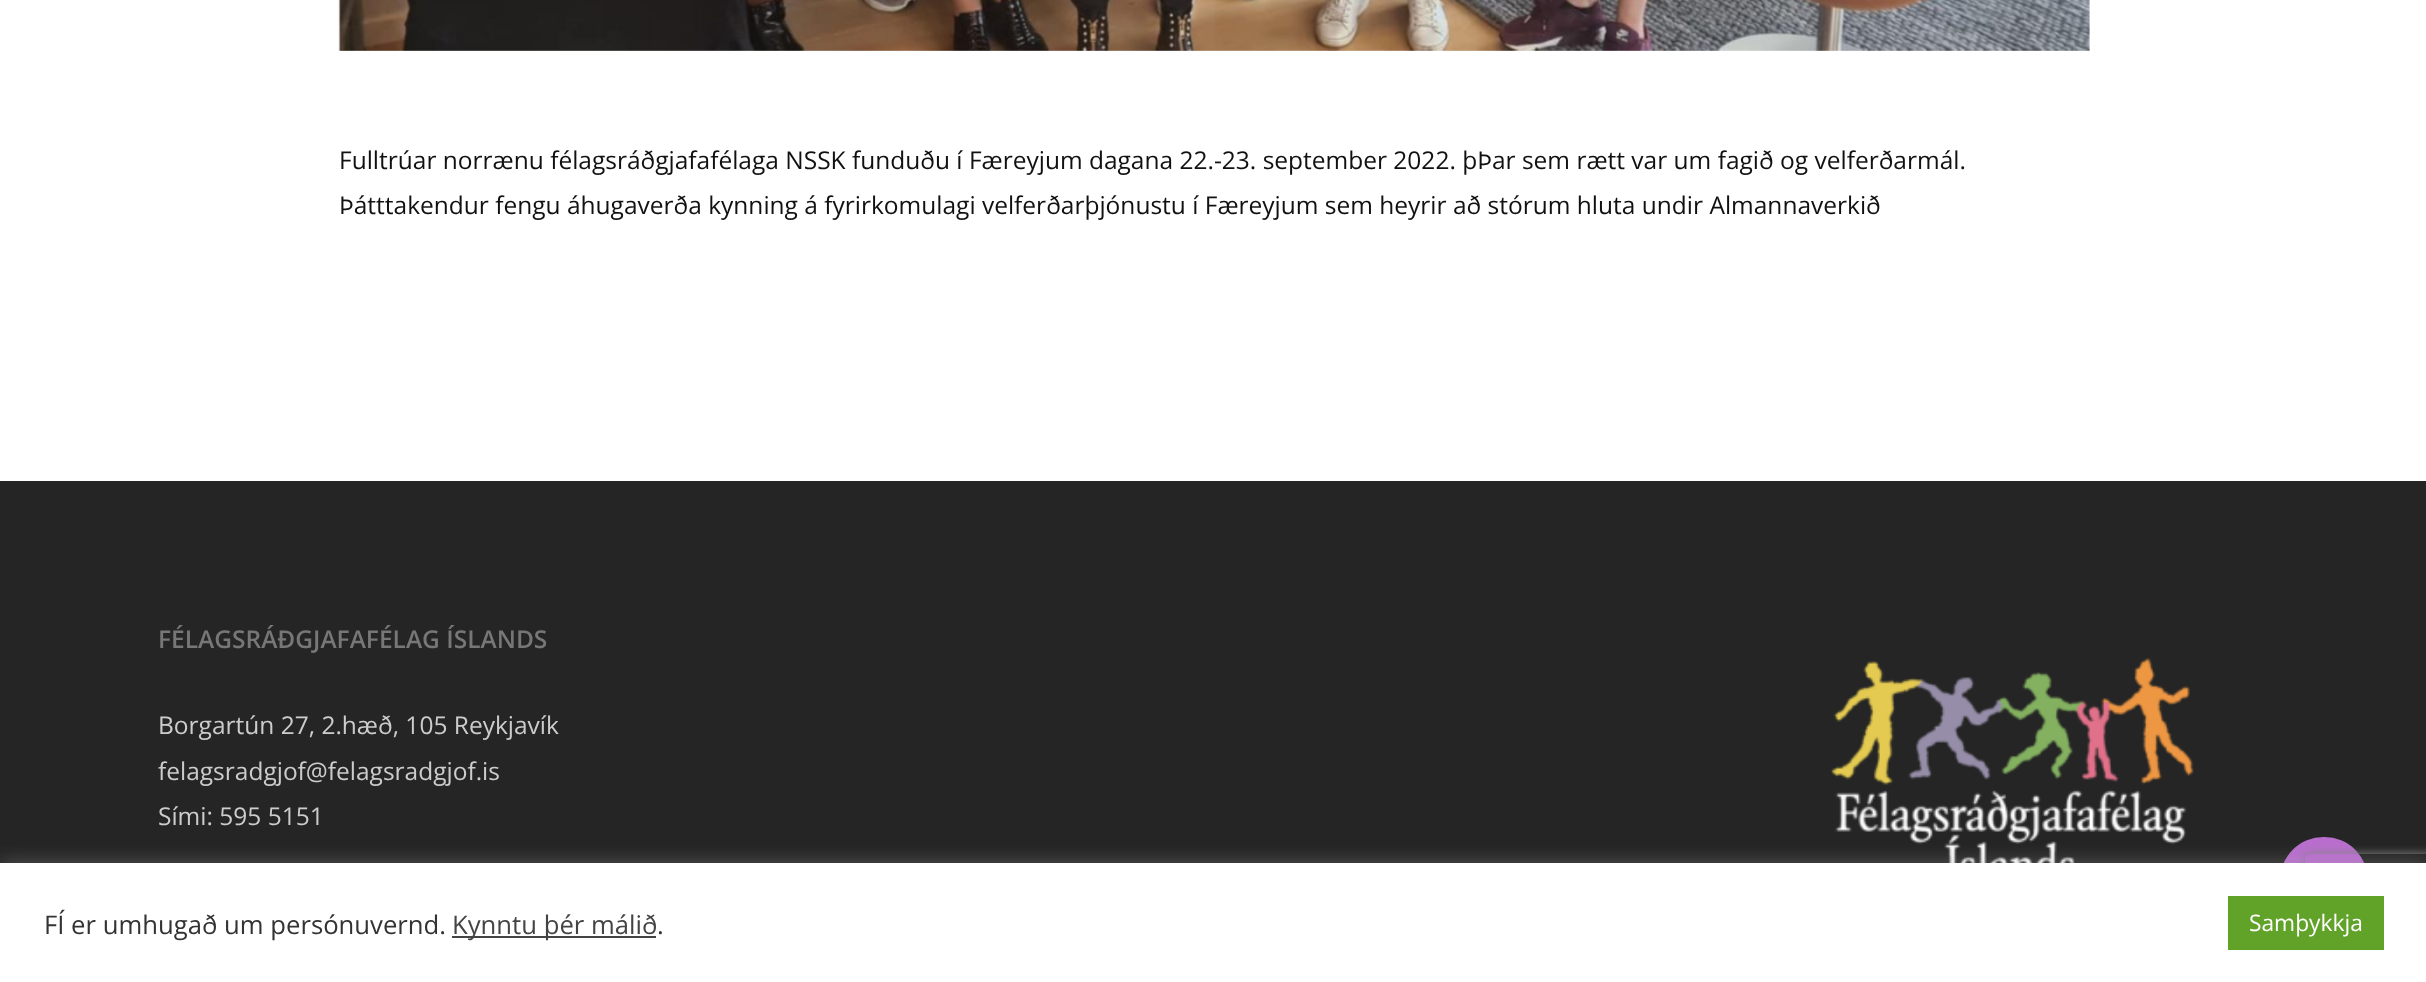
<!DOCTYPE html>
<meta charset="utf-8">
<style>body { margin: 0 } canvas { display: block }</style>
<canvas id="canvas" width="2426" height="982"></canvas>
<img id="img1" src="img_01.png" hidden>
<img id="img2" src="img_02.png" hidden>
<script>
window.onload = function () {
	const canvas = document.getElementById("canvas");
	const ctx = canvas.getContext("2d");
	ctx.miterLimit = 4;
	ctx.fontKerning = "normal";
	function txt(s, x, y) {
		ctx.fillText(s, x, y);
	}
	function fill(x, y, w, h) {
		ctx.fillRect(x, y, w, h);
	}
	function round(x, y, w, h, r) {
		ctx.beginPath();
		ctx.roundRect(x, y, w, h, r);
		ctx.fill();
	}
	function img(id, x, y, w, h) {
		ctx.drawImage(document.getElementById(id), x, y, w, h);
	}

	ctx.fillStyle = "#FFFFFF";
	fill(0, 0, 2426, 982);
	img("img1", 338, 0, 1752, 51);
	ctx.fillStyle = "#252525";
	fill(0, 481, 2426, 382);
	img("img2", 1830, 658, 364, 205);
	ctx.fillStyle = "#B96ECE";
	round(2280, 837, 88, 87, 43.5);
	ctx.save();
	ctx.beginPath();
	ctx.moveTo(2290, 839);
	ctx.lineTo(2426, 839);
	ctx.lineTo(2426, 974);
	ctx.lineTo(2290, 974);
	ctx.closePath();
	ctx.moveTo(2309, 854);
	ctx.lineTo(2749, 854);
	ctx.bezierCurveTo(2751, 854, 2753, 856, 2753, 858);
	ctx.lineTo(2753, 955);
	ctx.bezierCurveTo(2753, 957, 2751, 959, 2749, 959);
	ctx.lineTo(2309, 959);
	ctx.bezierCurveTo(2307, 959, 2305, 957, 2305, 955);
	ctx.lineTo(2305, 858);
	ctx.bezierCurveTo(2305, 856, 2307, 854, 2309, 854);
	ctx.closePath();
	ctx.clip("evenodd");
	ctx.fillStyle = "#808080";
	ctx.filter = "blur(4.5px)";
	ctx.beginPath();
	ctx.roundRect(2305, 854, 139, 105, 4);
	ctx.fill();
	ctx.filter = "none";
	ctx.restore();
	ctx.fillStyle = "rgba(172, 171, 171, 0.3)";
	ctx.filter = "blur(9px)";
	ctx.beginPath();
	ctx.rect(0, 861, 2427, 121);
	ctx.fill();
	ctx.filter = "none";
	ctx.fillStyle = "#FFFFFF";
	fill(0, 863, 2426, 119);
	ctx.fillStyle = "#444444";
	fill(452, 936, 204, 2);
	ctx.fillStyle = "#61A229";
	fill(2228, 896, 156, 54);
	ctx.font = "24.5px Open Sans";
	ctx.fillStyle = "#111111";
	txt("Fulltrúar norrænu félagsráðgjafafélaga NSSK funduðu í Færeyjum dagana 22.-23. september 2022. þÞar sem rætt var um fagið og velferðarmál.", 339, 169);
	txt("Þátttakendur fengu áhugaverða kynning á fyrirkomulagi velferðarþjónustu í Færeyjum sem heyrir að stórum hluta undir Almannaverkið", 339, 214);
	ctx.font = "600 24.5px Open Sans";
	ctx.fillStyle = "#777777";
	txt("FÉLAGSRÁÐGJAFAFÉLAG ÍSLANDS", 158, 648);
	ctx.font = "24.5px Open Sans";
	ctx.fillStyle = "#CCCCCC";
	txt("Borgartún 27, 2.hæð, 105 Reykjavík", 158, 734);
	txt("felagsradgjof@felagsradgjof.is", 158, 780);
	txt("Sími: 595 5151", 158, 825);
	ctx.font = "25.7px Open Sans";
	ctx.fillStyle = "#333333";
	txt("FÍ er umhugað um persónuvernd.", 44, 934);
	ctx.fillStyle = "#444444";
	txt("Kynntu þér málið", 452, 934);
	ctx.fillStyle = "#333333";
	txt(".", 657, 934);
	ctx.font = "22.75px Open Sans";
	ctx.fillStyle = "#FFFFFF";
	txt("Samþykkja", 2249, 931);
};
</script>
